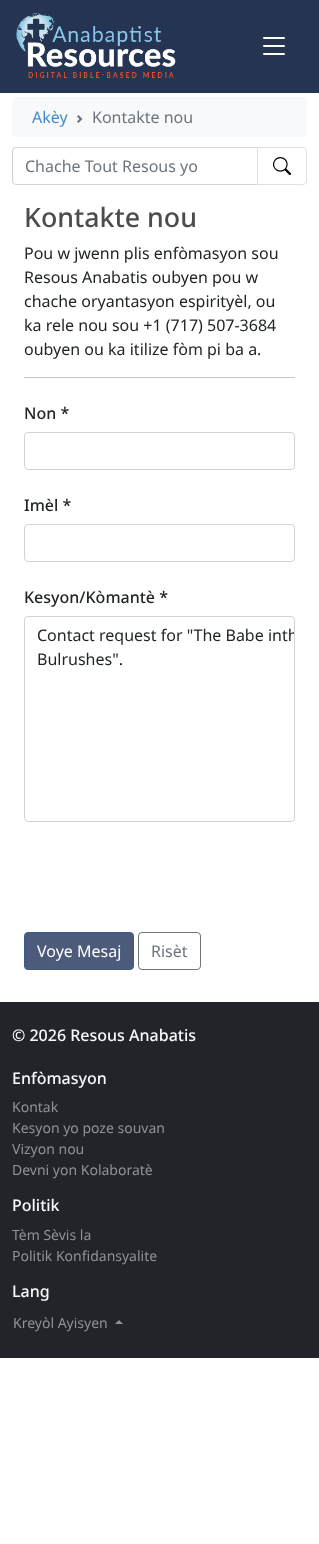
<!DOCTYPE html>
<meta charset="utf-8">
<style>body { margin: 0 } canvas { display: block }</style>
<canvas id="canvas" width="319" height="1544"></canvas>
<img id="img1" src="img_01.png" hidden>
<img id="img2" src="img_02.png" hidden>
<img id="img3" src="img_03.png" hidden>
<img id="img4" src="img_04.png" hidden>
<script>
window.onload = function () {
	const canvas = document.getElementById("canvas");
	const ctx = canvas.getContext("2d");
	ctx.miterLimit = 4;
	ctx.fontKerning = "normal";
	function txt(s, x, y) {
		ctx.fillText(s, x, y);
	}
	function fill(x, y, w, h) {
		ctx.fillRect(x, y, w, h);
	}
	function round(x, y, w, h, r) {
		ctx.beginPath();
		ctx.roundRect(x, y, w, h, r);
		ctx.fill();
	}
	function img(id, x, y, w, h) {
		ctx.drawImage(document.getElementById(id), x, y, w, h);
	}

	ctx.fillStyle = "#FFFFFF";
	fill(0, 0, 319, 1544);
	ctx.fillStyle = "#243452";
	fill(0, 0, 319, 93);
	img("img1", 16, 13, 160, 65);
	img("img2", 263, 37, 22, 18);
	ctx.fillStyle = "#F8F9FA";
	round(12, 97, 295, 40, 4);
	img("img3", 77, 115, 6, 8);
	ctx.beginPath();
	ctx.roundRect(12.5, 147.5, 245, 37, [3.5, 0, 0, 3.5]);
	ctx.strokeStyle = "#CED4DA";
	ctx.stroke();
	ctx.fillStyle = "#FFFFFF";
	ctx.beginPath();
	ctx.roundRect(257.5, 147.5, 49, 37, [0, 3.5, 3.5, 0]);
	ctx.fill();
	ctx.strokeStyle = "#DEE2E6";
	ctx.stroke();
	img("img4", 273, 157, 18, 18);
	ctx.fillStyle = "#C8C9CA";
	fill(24, 377, 271, 1);
	ctx.beginPath();
	ctx.roundRect(24.5, 432.5, 270, 37, 3.5);
	ctx.strokeStyle = "#CED4DA";
	ctx.stroke();
	ctx.beginPath();
	ctx.roundRect(24.5, 524.5, 270, 37, 3.5);
	ctx.stroke();
	ctx.beginPath();
	ctx.roundRect(24.5, 616.5, 270, 205, 3.5);
	ctx.stroke();
	ctx.fillStyle = "#4C5B79";
	ctx.beginPath();
	ctx.roundRect(24.5, 932.5, 109, 37, 3.5);
	ctx.fill();
	ctx.strokeStyle = "#3D588A";
	ctx.stroke();
	ctx.beginPath();
	ctx.roundRect(138.5, 932.5, 62, 37, 3.5);
	ctx.strokeStyle = "#6C757D";
	ctx.stroke();
	ctx.fillStyle = "#212529";
	fill(0, 1002, 319, 356);
	ctx.fillStyle = "#909294";
	ctx.beginPath();
	ctx.moveTo(123, 1324);
	ctx.lineTo(115, 1324);
	ctx.lineTo(119, 1320);
	ctx.closePath();
	ctx.fill();
	ctx.font = "16px Noto Sans";
	ctx.fillStyle = "#428BCA";
	txt("Akèy", 32, 123);
	ctx.fillStyle = "#6C757D";
	txt("Kontakte nou", 92, 123);
	txt("Chache Tout Resous yo", 25, 172);
	ctx.font = "500 26.75px Noto Sans";
	ctx.fillStyle = "#4C4C4C";
	txt("Kontakte nou", 24, 227);
	ctx.font = "16px Noto Sans";
	ctx.fillStyle = "#212529";
	txt("Pou w jwenn plis enfòmasyon sou", 24, 259);
	txt("Resous Anabatis oubyen pou w", 24, 283);
	txt("chache oryantasyon espirityèl, ou", 24, 307);
	txt("ka rele nou sou +1 (717) 507-3684", 24, 331);
	txt("oubyen ou ka itilize fòm pi ba a.", 24, 355);
	ctx.font = "500 16px Noto Sans";
	txt("Non *", 24, 419);
	txt("Imèl *", 24, 511);
	txt("Kesyon/Kòmantè *", 24, 603);
	ctx.font = "16px Noto Sans";
	txt("Contact request for \"The Babe in", 37, 641);
	ctx.save();
	ctx.beginPath();
	ctx.roundRect(25, 617, 269, 204, 3);
	ctx.clip();
	txt("th", 282, 641);
	ctx.restore();
	txt("Bulrushes\".", 37, 665);
	ctx.fillStyle = "#FFFFFF";
	txt("Voye Mesaj", 37, 957);
	ctx.fillStyle = "#6C757D";
	txt("Risèt", 151, 957);
	ctx.font = "500 16px Noto Sans";
	ctx.fillStyle = "#F8F9FA";
	txt("© 2026 Resous Anabatis", 12, 1041);
	txt("Enfòmasyon", 12, 1084);
	ctx.font = "14px Noto Sans";
	ctx.fillStyle = "#909294";
	txt("Kontak", 12, 1112);
	txt("Kesyon yo poze souvan", 12, 1133);
	txt("Vizyon nou", 12, 1154);
	txt("Devni yon Kolaboratè", 12, 1175);
	ctx.font = "500 16px Noto Sans";
	ctx.fillStyle = "#F8F9FA";
	txt("Politik", 12, 1211);
	ctx.font = "14px Noto Sans";
	ctx.fillStyle = "#909294";
	txt("Tèm Sèvis la", 12, 1240);
	txt("Politik Konfidansyalite", 12, 1261);
	ctx.font = "500 16px Noto Sans";
	ctx.fillStyle = "#F8F9FA";
	txt("Lang", 12, 1297);
	ctx.font = "14px Noto Sans";
	ctx.fillStyle = "#909294";
	txt("Kreyòl Ayisyen", 13, 1328);
};
</script>
